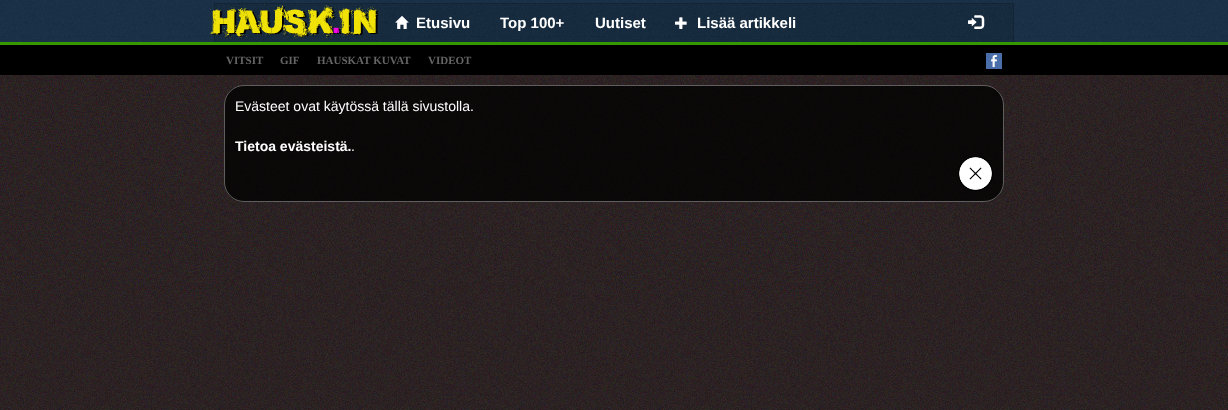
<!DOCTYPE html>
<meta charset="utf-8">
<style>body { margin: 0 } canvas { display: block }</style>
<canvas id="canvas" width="1228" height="410"></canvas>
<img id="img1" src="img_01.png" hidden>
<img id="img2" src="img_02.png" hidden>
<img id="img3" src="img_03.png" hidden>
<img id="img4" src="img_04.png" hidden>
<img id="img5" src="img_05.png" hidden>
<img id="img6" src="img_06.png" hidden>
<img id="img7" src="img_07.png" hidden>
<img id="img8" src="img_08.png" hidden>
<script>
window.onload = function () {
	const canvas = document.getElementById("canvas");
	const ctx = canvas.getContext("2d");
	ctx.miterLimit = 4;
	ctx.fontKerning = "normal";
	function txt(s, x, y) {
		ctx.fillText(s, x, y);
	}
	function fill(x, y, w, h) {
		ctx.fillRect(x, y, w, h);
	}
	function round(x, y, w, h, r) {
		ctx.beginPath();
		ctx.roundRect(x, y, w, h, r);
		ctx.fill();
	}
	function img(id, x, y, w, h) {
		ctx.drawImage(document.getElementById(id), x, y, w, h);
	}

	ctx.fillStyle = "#FFFFFF";
	fill(0, 0, 1228, 410);
	img("img1", 0, 75, 1228, 335);
	img("img2", 0, 0, 1228, 42);
	ctx.fillStyle = "#369801";
	fill(0, 42, 1228, 3);
	ctx.fillStyle = "rgba(0, 0, 0, 0.1)";
	fill(214, 3, 800, 39);
	ctx.fillStyle = "rgba(0, 0, 0, 0.15)";
	ctx.beginPath();
	ctx.moveTo(214, 3);
	ctx.lineTo(1014, 3);
	ctx.lineTo(1013, 4);
	ctx.lineTo(215, 4);
	ctx.closePath();
	ctx.fill();
	ctx.beginPath();
	ctx.moveTo(1014, 3);
	ctx.lineTo(1014, 42);
	ctx.lineTo(1013, 42);
	ctx.lineTo(1013, 4);
	ctx.closePath();
	ctx.fill();
	ctx.beginPath();
	ctx.moveTo(214, 42);
	ctx.lineTo(214, 3);
	ctx.lineTo(215, 4);
	ctx.lineTo(215, 42);
	ctx.closePath();
	ctx.fill();
	img("img3", 210, 4, 169, 36);
	img("img4", 395, 16, 14, 13);
	img("img5", 675, 17, 12, 12);
	img("img6", 968, 15, 17, 14);
	ctx.fillStyle = "#000000";
	fill(0, 45, 1228, 30);
	img("img7", 986, 53, 16, 16);
	ctx.fillStyle = "rgba(0, 0, 0, 0.75)";
	round(224, 85, 780, 117, 20);
	ctx.beginPath();
	ctx.roundRect(224.5, 85.5, 779, 116, 19.5);
	ctx.strokeStyle = "rgba(255, 255, 255, 0.35)";
	ctx.stroke();
	img("img8", 958, 156, 35, 35);
	ctx.font = "bold 15px Liberation Sans";
	ctx.fillStyle = "#FFFFFF";
	txt("Etusivu", 416, 28);
	txt("Top 100+", 500, 28);
	txt("Uutiset", 595, 28);
	txt("Lisää artikkeli", 697, 28);
	ctx.font = "bold 11px Liberation Serif";
	ctx.fillStyle = "#656565";
	txt("VITSIT", 226, 64);
	txt("GIF", 280, 64);
	txt("HAUSKAT KUVAT", 317, 64);
	txt("VIDEOT", 428, 64);
	ctx.font = "14px Liberation Sans";
	ctx.fillStyle = "#FFFFFF";
	txt("Evästeet ovat käytössä tällä sivustolla.", 235, 111);
	ctx.font = "bold 14px Liberation Sans";
	txt("Tietoa evästeistä.", 235, 151);
	ctx.font = "14px Liberation Sans";
	txt(".", 351, 151);
};
</script>
